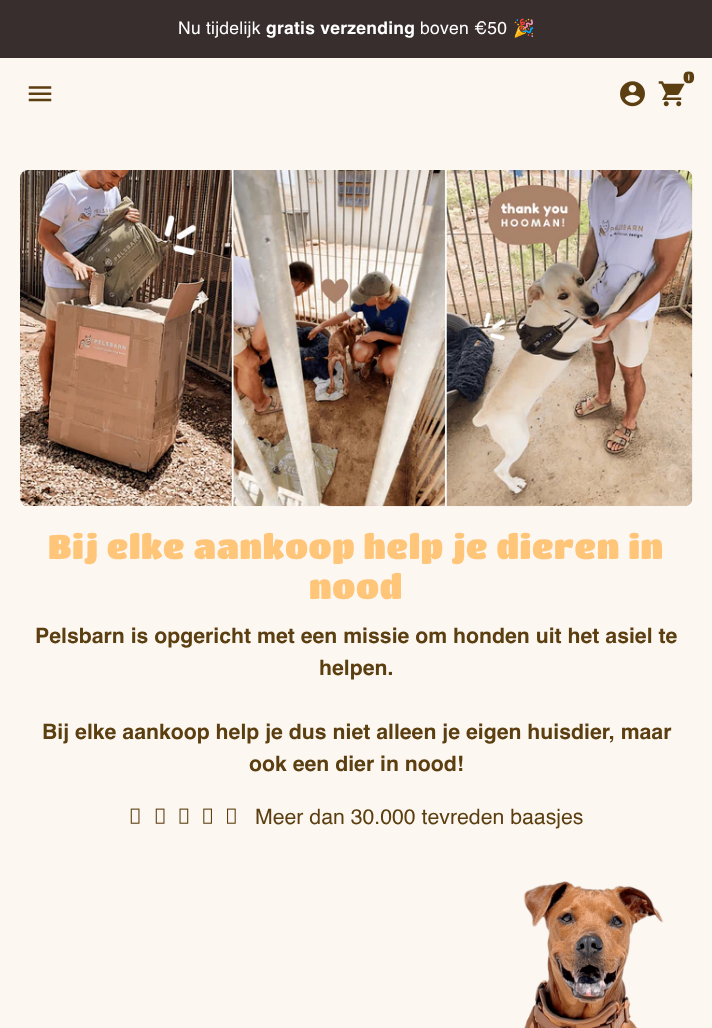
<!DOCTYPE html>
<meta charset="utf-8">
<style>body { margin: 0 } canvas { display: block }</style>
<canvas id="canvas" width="712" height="1028"></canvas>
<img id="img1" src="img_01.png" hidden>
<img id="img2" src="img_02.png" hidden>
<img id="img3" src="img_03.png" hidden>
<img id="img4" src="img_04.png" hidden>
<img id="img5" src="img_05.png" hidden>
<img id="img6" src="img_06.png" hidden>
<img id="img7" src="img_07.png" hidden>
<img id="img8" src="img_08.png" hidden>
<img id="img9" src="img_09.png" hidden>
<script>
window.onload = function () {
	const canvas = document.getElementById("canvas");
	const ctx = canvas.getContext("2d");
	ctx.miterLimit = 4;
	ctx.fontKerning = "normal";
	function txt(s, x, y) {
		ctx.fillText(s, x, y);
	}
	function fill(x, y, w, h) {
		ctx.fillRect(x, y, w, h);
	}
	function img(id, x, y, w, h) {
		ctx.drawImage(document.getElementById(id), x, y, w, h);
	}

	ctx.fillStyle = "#FDF7F2";
	fill(0, 0, 712, 1028);
	ctx.fillStyle = "#382E2E";
	fill(0, 0, 712, 58);
	img("img1", 658, 81, 27, 26);
	img("img2", 620, 81, 25, 26);
	img("img3", 28, 86, 24, 16);
	img("img4", 20, 170, 673, 337);
	img("img5", 130, 808, 10, 16);
	img("img5", 155, 808, 10, 16);
	img("img6", 179, 808, 10, 16);
	img("img7", 203, 808, 9, 16);
	img("img8", 227, 808, 9, 16);
	img("img9", 523, 881, 141, 147);
	ctx.letterSpacing = "0.25px";
	ctx.font = "17.5px Helvetica";
	ctx.fillStyle = "#FFFFFF";
	txt("Nu tijdelijk", 178, 34);
	ctx.font = "bold 17.5px Helvetica";
	txt("gratis verzending", 266, 34);
	ctx.font = "17.5px Helvetica";
	txt("boven €50", 420, 34);
	ctx.font = "17.5px Noto Color Emoji";
	txt("🎉", 513, 34);
	ctx.letterSpacing = "0px";
	ctx.font = "16px Titan One";
	ctx.fillStyle = "#5B3F10";
	txt("0", 683, 83);
	ctx.letterSpacing = "0.6px";
	ctx.font = "33.75px Titan One";
	ctx.fillStyle = "#FFC578";
	txt("Bij elke aankoop help je dieren in", 48, 559);
	txt("nood", 309, 599);
	ctx.letterSpacing = "0px";
	ctx.font = "bold 21.25px Helvetica";
	ctx.fillStyle = "#5B3F10";
	txt("Pelsbarn is opgericht met een missie om honden uit het asiel te", 35, 643);
	txt("helpen.", 319, 675);
	txt("Bij elke aankoop help je dus niet alleen je eigen huisdier, maar", 42, 739);
	txt("ook een dier in nood!", 249, 771);
	ctx.font = "21.25px Helvetica";
	txt("Meer dan 30.000 tevreden baasjes", 255, 824);
};
</script>
